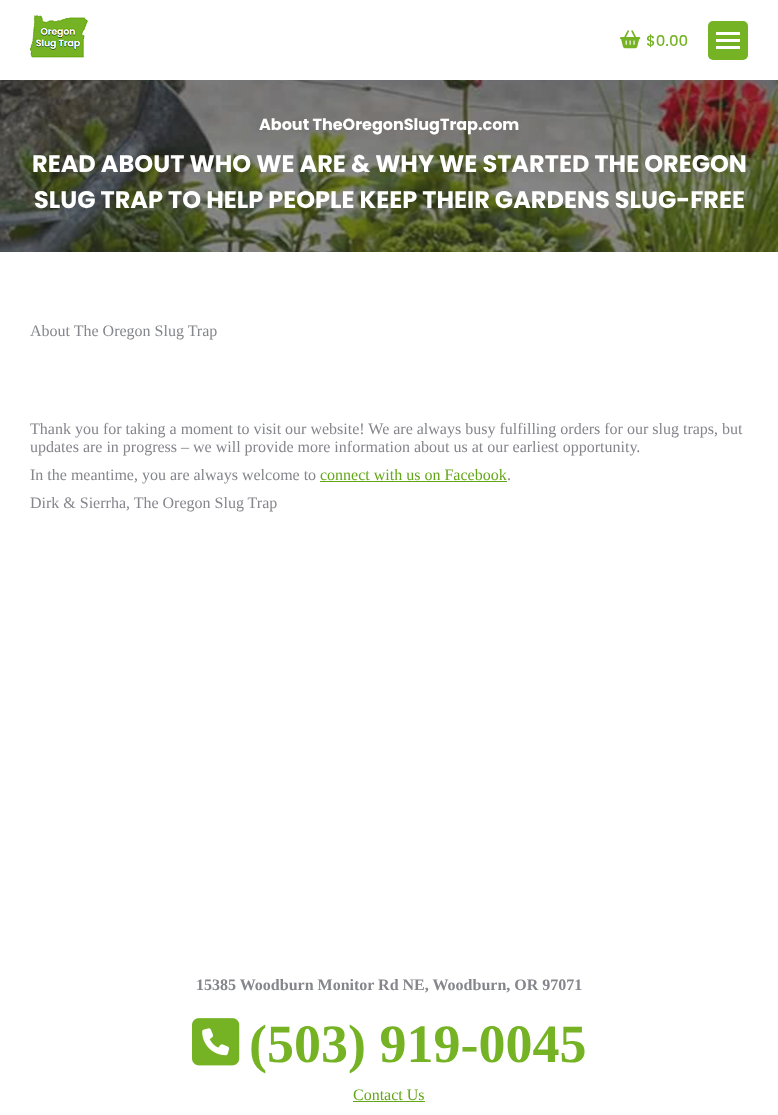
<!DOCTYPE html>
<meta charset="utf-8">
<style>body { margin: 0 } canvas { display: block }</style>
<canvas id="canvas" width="778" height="1115"></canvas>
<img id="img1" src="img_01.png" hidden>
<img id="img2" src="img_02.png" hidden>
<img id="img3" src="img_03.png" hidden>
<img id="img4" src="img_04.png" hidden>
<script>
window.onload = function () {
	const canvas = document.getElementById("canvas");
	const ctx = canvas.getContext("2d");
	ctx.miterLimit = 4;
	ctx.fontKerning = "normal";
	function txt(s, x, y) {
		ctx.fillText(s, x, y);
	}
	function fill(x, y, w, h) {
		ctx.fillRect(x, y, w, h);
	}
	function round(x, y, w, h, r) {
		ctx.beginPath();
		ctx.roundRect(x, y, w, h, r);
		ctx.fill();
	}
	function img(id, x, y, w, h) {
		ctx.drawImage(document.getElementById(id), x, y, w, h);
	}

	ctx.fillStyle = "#FFFFFF";
	fill(0, 0, 778, 1115);
	img("img1", 30, 15, 58, 43);
	img("img2", 620, 30, 21, 19);
	ctx.fillStyle = "#75B325";
	round(708, 21, 40, 39, 5);
	ctx.fillStyle = "#FFFFFF";
	fill(716, 32, 24, 3);
	fill(716, 39, 24, 3);
	fill(716, 46, 24, 3);
	img("img3", 0, 80, 778, 172);
	ctx.fillStyle = "#64A619";
	fill(320, 481, 187, 1);
	img("img4", 192, 1018, 48, 48);
	fill(353, 1101, 72, 1);
	ctx.font = "500 15px Poppins";
	ctx.fillStyle = "#75B325";
	txt("$0.00", 646, 46);
	ctx.font = "bold 16px Poppins";
	ctx.fillStyle = "#FFFFFF";
	txt("About TheOregonSlugTrap.com", 259, 130);
	ctx.font = "bold 24px Poppins";
	txt("READ ABOUT WHO WE ARE & WHY WE STARTED THE OREGON", 32, 172);
	txt("SLUG TRAP TO HELP PEOPLE KEEP THEIR GARDENS SLUG-FREE", 34, 208);
	ctx.font = "16px Liberation Serif";
	ctx.fillStyle = "#85868C";
	txt("About The Oregon Slug Trap", 30, 336);
	txt("Thank you for taking a moment to visit our website! We are always busy fulfilling orders for our slug traps, but", 30, 434);
	txt("updates are in progress – we will provide more information about us at our earliest opportunity.", 30, 452);
	txt("In the meantime, you are always welcome to", 30, 480);
	ctx.fillStyle = "#64A619";
	txt("connect with us on Facebook", 320, 480);
	ctx.fillStyle = "#85868C";
	txt(".", 507, 480);
	txt("Dirk & Sierrha, The Oregon Slug Trap", 30, 508);
	ctx.font = "bold 16px Liberation Serif";
	txt("15385 Woodburn Monitor Rd NE, Woodburn, OR 97071", 196, 990);
	ctx.font = "bold 54px Liberation Serif";
	ctx.fillStyle = "#75B325";
	txt("(503) 919-0045", 249, 1062);
	ctx.font = "16px Liberation Serif";
	ctx.fillStyle = "#64A619";
	txt("Contact Us", 353, 1100);
};
</script>
